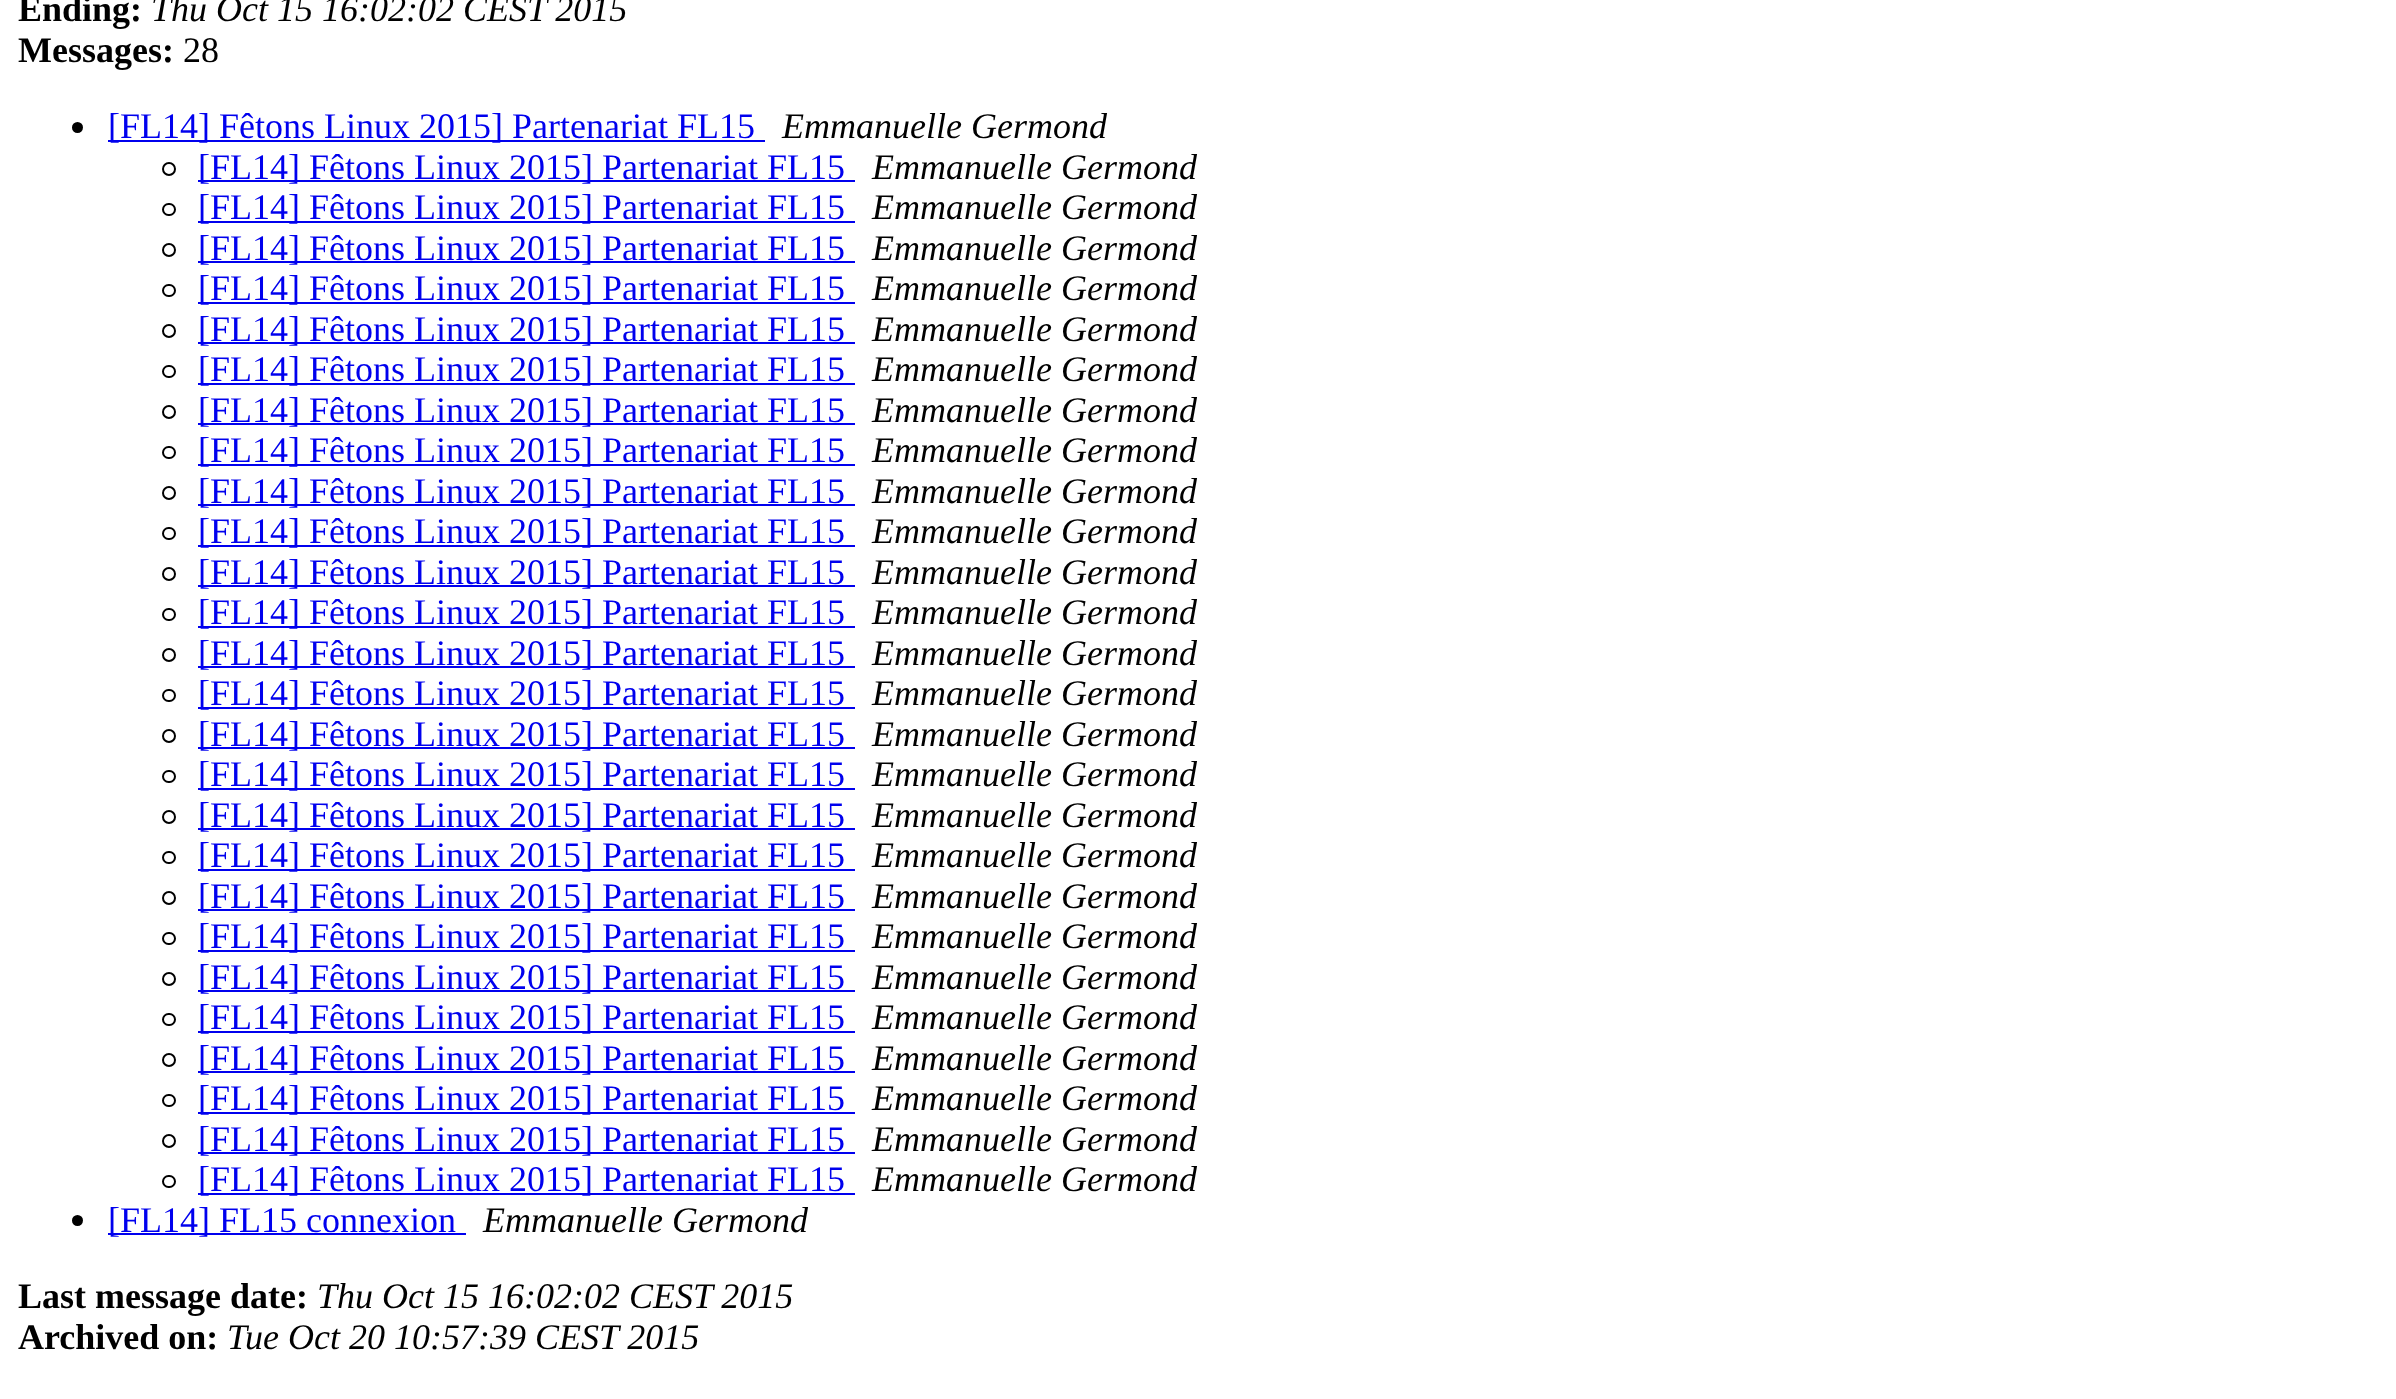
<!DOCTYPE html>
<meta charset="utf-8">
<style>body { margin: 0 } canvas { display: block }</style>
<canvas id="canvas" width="2396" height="1399"></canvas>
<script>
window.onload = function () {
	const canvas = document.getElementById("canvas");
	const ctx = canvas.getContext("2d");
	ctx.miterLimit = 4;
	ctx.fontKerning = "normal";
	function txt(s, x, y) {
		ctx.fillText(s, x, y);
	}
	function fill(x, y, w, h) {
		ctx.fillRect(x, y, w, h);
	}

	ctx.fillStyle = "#FFFFFF";
	fill(0, 0, 2396, 1399);
	ctx.fillStyle = "#000000";
	ctx.beginPath();
	ctx.arc(77.5, 127.5, 5.5, 0, Math.PI * 2);
	ctx.fill();
	ctx.fillStyle = "#0000EE";
	fill(108, 140, 657, 2);
	ctx.beginPath();
	ctx.arc(169, 169, 6, 0, Math.PI * 2);
	ctx.strokeStyle = "#000000";
	ctx.lineWidth = 2;
	ctx.stroke();
	fill(198, 180, 657, 2);
	ctx.beginPath();
	ctx.roundRect(163, 204, 12, 11, 5.5);
	ctx.stroke();
	fill(198, 221, 657, 2);
	ctx.beginPath();
	ctx.arc(169, 250, 6, 0, Math.PI * 2);
	ctx.stroke();
	fill(198, 261, 657, 2);
	ctx.beginPath();
	ctx.roundRect(163, 285, 12, 11, 5.5);
	ctx.stroke();
	fill(198, 302, 657, 2);
	ctx.beginPath();
	ctx.arc(169, 331, 6, 0, Math.PI * 2);
	ctx.stroke();
	fill(198, 342, 657, 2);
	ctx.beginPath();
	ctx.roundRect(163, 366, 12, 11, 5.5);
	ctx.stroke();
	fill(198, 383, 657, 2);
	ctx.beginPath();
	ctx.arc(169, 412, 6, 0, Math.PI * 2);
	ctx.stroke();
	fill(198, 423, 657, 2);
	ctx.beginPath();
	ctx.roundRect(163, 447, 12, 11, 5.5);
	ctx.stroke();
	fill(198, 464, 657, 2);
	ctx.beginPath();
	ctx.arc(169, 493, 6, 0, Math.PI * 2);
	ctx.stroke();
	fill(198, 504, 657, 2);
	ctx.beginPath();
	ctx.roundRect(163, 528, 12, 11, 5.5);
	ctx.stroke();
	fill(198, 545, 657, 2);
	ctx.beginPath();
	ctx.arc(169, 574, 6, 0, Math.PI * 2);
	ctx.stroke();
	fill(198, 585, 657, 2);
	ctx.beginPath();
	ctx.roundRect(163, 609, 12, 11, 5.5);
	ctx.stroke();
	fill(198, 626, 657, 2);
	ctx.beginPath();
	ctx.arc(169, 655, 6, 0, Math.PI * 2);
	ctx.stroke();
	fill(198, 666, 657, 2);
	ctx.beginPath();
	ctx.roundRect(163, 690, 12, 11, 5.5);
	ctx.stroke();
	fill(198, 707, 657, 2);
	ctx.beginPath();
	ctx.arc(169, 736, 6, 0, Math.PI * 2);
	ctx.stroke();
	fill(198, 747, 657, 2);
	ctx.beginPath();
	ctx.roundRect(163, 771, 12, 11, 5.5);
	ctx.stroke();
	fill(198, 788, 657, 2);
	ctx.beginPath();
	ctx.arc(169, 817, 6, 0, Math.PI * 2);
	ctx.stroke();
	fill(198, 828, 657, 2);
	ctx.beginPath();
	ctx.roundRect(163, 852, 12, 11, 5.5);
	ctx.stroke();
	fill(198, 869, 657, 2);
	ctx.beginPath();
	ctx.arc(169, 898, 6, 0, Math.PI * 2);
	ctx.stroke();
	fill(198, 909, 657, 2);
	ctx.beginPath();
	ctx.roundRect(163, 933, 12, 11, 5.5);
	ctx.stroke();
	fill(198, 950, 657, 2);
	ctx.beginPath();
	ctx.arc(169, 979, 6, 0, Math.PI * 2);
	ctx.stroke();
	fill(198, 990, 657, 2);
	ctx.beginPath();
	ctx.roundRect(163, 1014, 12, 11, 5.5);
	ctx.stroke();
	fill(198, 1031, 657, 2);
	ctx.beginPath();
	ctx.arc(169, 1060, 6, 0, Math.PI * 2);
	ctx.stroke();
	fill(198, 1071, 657, 2);
	ctx.beginPath();
	ctx.roundRect(163, 1095, 12, 11, 5.5);
	ctx.stroke();
	fill(198, 1112, 657, 2);
	ctx.beginPath();
	ctx.arc(169, 1141, 6, 0, Math.PI * 2);
	ctx.stroke();
	fill(198, 1152, 657, 2);
	ctx.beginPath();
	ctx.roundRect(163, 1176, 12, 11, 5.5);
	ctx.stroke();
	fill(198, 1193, 657, 2);
	ctx.fillStyle = "#000000";
	ctx.beginPath();
	ctx.arc(77.5, 1220.5, 5.5, 0, Math.PI * 2);
	ctx.fill();
	ctx.fillStyle = "#0000EE";
	fill(108, 1233, 358, 2);
	ctx.font = "bold 36px Liberation Serif";
	ctx.fillStyle = "#000000";
	txt("Ending:", 18, 21);
	ctx.font = "italic 36px Liberation Serif";
	txt("Thu Oct 15 16:02:02 CEST 2015", 151, 21);
	ctx.font = "bold 36px Liberation Serif";
	txt("Messages:", 18, 62);
	ctx.font = "36px Liberation Serif";
	txt("28", 183, 62);
	ctx.fillStyle = "#0000EE";
	txt("[FL14] Fêtons Linux 2015] Partenariat FL15", 108, 138);
	ctx.font = "italic 36px Liberation Serif";
	ctx.fillStyle = "#000000";
	txt("Emmanuelle Germond", 782, 138);
	ctx.font = "36px Liberation Serif";
	ctx.fillStyle = "#0000EE";
	txt("[FL14] Fêtons Linux 2015] Partenariat FL15", 198, 179);
	ctx.font = "italic 36px Liberation Serif";
	ctx.fillStyle = "#000000";
	txt("Emmanuelle Germond", 872, 179);
	ctx.font = "36px Liberation Serif";
	ctx.fillStyle = "#0000EE";
	txt("[FL14] Fêtons Linux 2015] Partenariat FL15", 198, 219);
	ctx.font = "italic 36px Liberation Serif";
	ctx.fillStyle = "#000000";
	txt("Emmanuelle Germond", 872, 219);
	ctx.font = "36px Liberation Serif";
	ctx.fillStyle = "#0000EE";
	txt("[FL14] Fêtons Linux 2015] Partenariat FL15", 198, 260);
	ctx.font = "italic 36px Liberation Serif";
	ctx.fillStyle = "#000000";
	txt("Emmanuelle Germond", 872, 260);
	ctx.font = "36px Liberation Serif";
	ctx.fillStyle = "#0000EE";
	txt("[FL14] Fêtons Linux 2015] Partenariat FL15", 198, 300);
	ctx.font = "italic 36px Liberation Serif";
	ctx.fillStyle = "#000000";
	txt("Emmanuelle Germond", 872, 300);
	ctx.font = "36px Liberation Serif";
	ctx.fillStyle = "#0000EE";
	txt("[FL14] Fêtons Linux 2015] Partenariat FL15", 198, 341);
	ctx.font = "italic 36px Liberation Serif";
	ctx.fillStyle = "#000000";
	txt("Emmanuelle Germond", 872, 341);
	ctx.font = "36px Liberation Serif";
	ctx.fillStyle = "#0000EE";
	txt("[FL14] Fêtons Linux 2015] Partenariat FL15", 198, 381);
	ctx.font = "italic 36px Liberation Serif";
	ctx.fillStyle = "#000000";
	txt("Emmanuelle Germond", 872, 381);
	ctx.font = "36px Liberation Serif";
	ctx.fillStyle = "#0000EE";
	txt("[FL14] Fêtons Linux 2015] Partenariat FL15", 198, 422);
	ctx.font = "italic 36px Liberation Serif";
	ctx.fillStyle = "#000000";
	txt("Emmanuelle Germond", 872, 422);
	ctx.font = "36px Liberation Serif";
	ctx.fillStyle = "#0000EE";
	txt("[FL14] Fêtons Linux 2015] Partenariat FL15", 198, 462);
	ctx.font = "italic 36px Liberation Serif";
	ctx.fillStyle = "#000000";
	txt("Emmanuelle Germond", 872, 462);
	ctx.font = "36px Liberation Serif";
	ctx.fillStyle = "#0000EE";
	txt("[FL14] Fêtons Linux 2015] Partenariat FL15", 198, 503);
	ctx.font = "italic 36px Liberation Serif";
	ctx.fillStyle = "#000000";
	txt("Emmanuelle Germond", 872, 503);
	ctx.font = "36px Liberation Serif";
	ctx.fillStyle = "#0000EE";
	txt("[FL14] Fêtons Linux 2015] Partenariat FL15", 198, 543);
	ctx.font = "italic 36px Liberation Serif";
	ctx.fillStyle = "#000000";
	txt("Emmanuelle Germond", 872, 543);
	ctx.font = "36px Liberation Serif";
	ctx.fillStyle = "#0000EE";
	txt("[FL14] Fêtons Linux 2015] Partenariat FL15", 198, 584);
	ctx.font = "italic 36px Liberation Serif";
	ctx.fillStyle = "#000000";
	txt("Emmanuelle Germond", 872, 584);
	ctx.font = "36px Liberation Serif";
	ctx.fillStyle = "#0000EE";
	txt("[FL14] Fêtons Linux 2015] Partenariat FL15", 198, 624);
	ctx.font = "italic 36px Liberation Serif";
	ctx.fillStyle = "#000000";
	txt("Emmanuelle Germond", 872, 624);
	ctx.font = "36px Liberation Serif";
	ctx.fillStyle = "#0000EE";
	txt("[FL14] Fêtons Linux 2015] Partenariat FL15", 198, 665);
	ctx.font = "italic 36px Liberation Serif";
	ctx.fillStyle = "#000000";
	txt("Emmanuelle Germond", 872, 665);
	ctx.font = "36px Liberation Serif";
	ctx.fillStyle = "#0000EE";
	txt("[FL14] Fêtons Linux 2015] Partenariat FL15", 198, 705);
	ctx.font = "italic 36px Liberation Serif";
	ctx.fillStyle = "#000000";
	txt("Emmanuelle Germond", 872, 705);
	ctx.font = "36px Liberation Serif";
	ctx.fillStyle = "#0000EE";
	txt("[FL14] Fêtons Linux 2015] Partenariat FL15", 198, 746);
	ctx.font = "italic 36px Liberation Serif";
	ctx.fillStyle = "#000000";
	txt("Emmanuelle Germond", 872, 746);
	ctx.font = "36px Liberation Serif";
	ctx.fillStyle = "#0000EE";
	txt("[FL14] Fêtons Linux 2015] Partenariat FL15", 198, 786);
	ctx.font = "italic 36px Liberation Serif";
	ctx.fillStyle = "#000000";
	txt("Emmanuelle Germond", 872, 786);
	ctx.font = "36px Liberation Serif";
	ctx.fillStyle = "#0000EE";
	txt("[FL14] Fêtons Linux 2015] Partenariat FL15", 198, 827);
	ctx.font = "italic 36px Liberation Serif";
	ctx.fillStyle = "#000000";
	txt("Emmanuelle Germond", 872, 827);
	ctx.font = "36px Liberation Serif";
	ctx.fillStyle = "#0000EE";
	txt("[FL14] Fêtons Linux 2015] Partenariat FL15", 198, 867);
	ctx.font = "italic 36px Liberation Serif";
	ctx.fillStyle = "#000000";
	txt("Emmanuelle Germond", 872, 867);
	ctx.font = "36px Liberation Serif";
	ctx.fillStyle = "#0000EE";
	txt("[FL14] Fêtons Linux 2015] Partenariat FL15", 198, 908);
	ctx.font = "italic 36px Liberation Serif";
	ctx.fillStyle = "#000000";
	txt("Emmanuelle Germond", 872, 908);
	ctx.font = "36px Liberation Serif";
	ctx.fillStyle = "#0000EE";
	txt("[FL14] Fêtons Linux 2015] Partenariat FL15", 198, 948);
	ctx.font = "italic 36px Liberation Serif";
	ctx.fillStyle = "#000000";
	txt("Emmanuelle Germond", 872, 948);
	ctx.font = "36px Liberation Serif";
	ctx.fillStyle = "#0000EE";
	txt("[FL14] Fêtons Linux 2015] Partenariat FL15", 198, 989);
	ctx.font = "italic 36px Liberation Serif";
	ctx.fillStyle = "#000000";
	txt("Emmanuelle Germond", 872, 989);
	ctx.font = "36px Liberation Serif";
	ctx.fillStyle = "#0000EE";
	txt("[FL14] Fêtons Linux 2015] Partenariat FL15", 198, 1029);
	ctx.font = "italic 36px Liberation Serif";
	ctx.fillStyle = "#000000";
	txt("Emmanuelle Germond", 872, 1029);
	ctx.font = "36px Liberation Serif";
	ctx.fillStyle = "#0000EE";
	txt("[FL14] Fêtons Linux 2015] Partenariat FL15", 198, 1070);
	ctx.font = "italic 36px Liberation Serif";
	ctx.fillStyle = "#000000";
	txt("Emmanuelle Germond", 872, 1070);
	ctx.font = "36px Liberation Serif";
	ctx.fillStyle = "#0000EE";
	txt("[FL14] Fêtons Linux 2015] Partenariat FL15", 198, 1110);
	ctx.font = "italic 36px Liberation Serif";
	ctx.fillStyle = "#000000";
	txt("Emmanuelle Germond", 872, 1110);
	ctx.font = "36px Liberation Serif";
	ctx.fillStyle = "#0000EE";
	txt("[FL14] Fêtons Linux 2015] Partenariat FL15", 198, 1151);
	ctx.font = "italic 36px Liberation Serif";
	ctx.fillStyle = "#000000";
	txt("Emmanuelle Germond", 872, 1151);
	ctx.font = "36px Liberation Serif";
	ctx.fillStyle = "#0000EE";
	txt("[FL14] Fêtons Linux 2015] Partenariat FL15", 198, 1191);
	ctx.font = "italic 36px Liberation Serif";
	ctx.fillStyle = "#000000";
	txt("Emmanuelle Germond", 872, 1191);
	ctx.font = "36px Liberation Serif";
	ctx.fillStyle = "#0000EE";
	txt("[FL14] FL15 connexion", 108, 1232);
	ctx.font = "italic 36px Liberation Serif";
	ctx.fillStyle = "#000000";
	txt("Emmanuelle Germond", 483, 1232);
	ctx.font = "bold 36px Liberation Serif";
	txt("Last message date:", 18, 1308);
	ctx.font = "italic 36px Liberation Serif";
	txt("Thu Oct 15 16:02:02 CEST 2015", 317, 1308);
	ctx.font = "bold 36px Liberation Serif";
	txt("Archived on:", 18, 1349);
	ctx.font = "italic 36px Liberation Serif";
	txt("Tue Oct 20 10:57:39 CEST 2015", 227, 1349);
};
</script>
